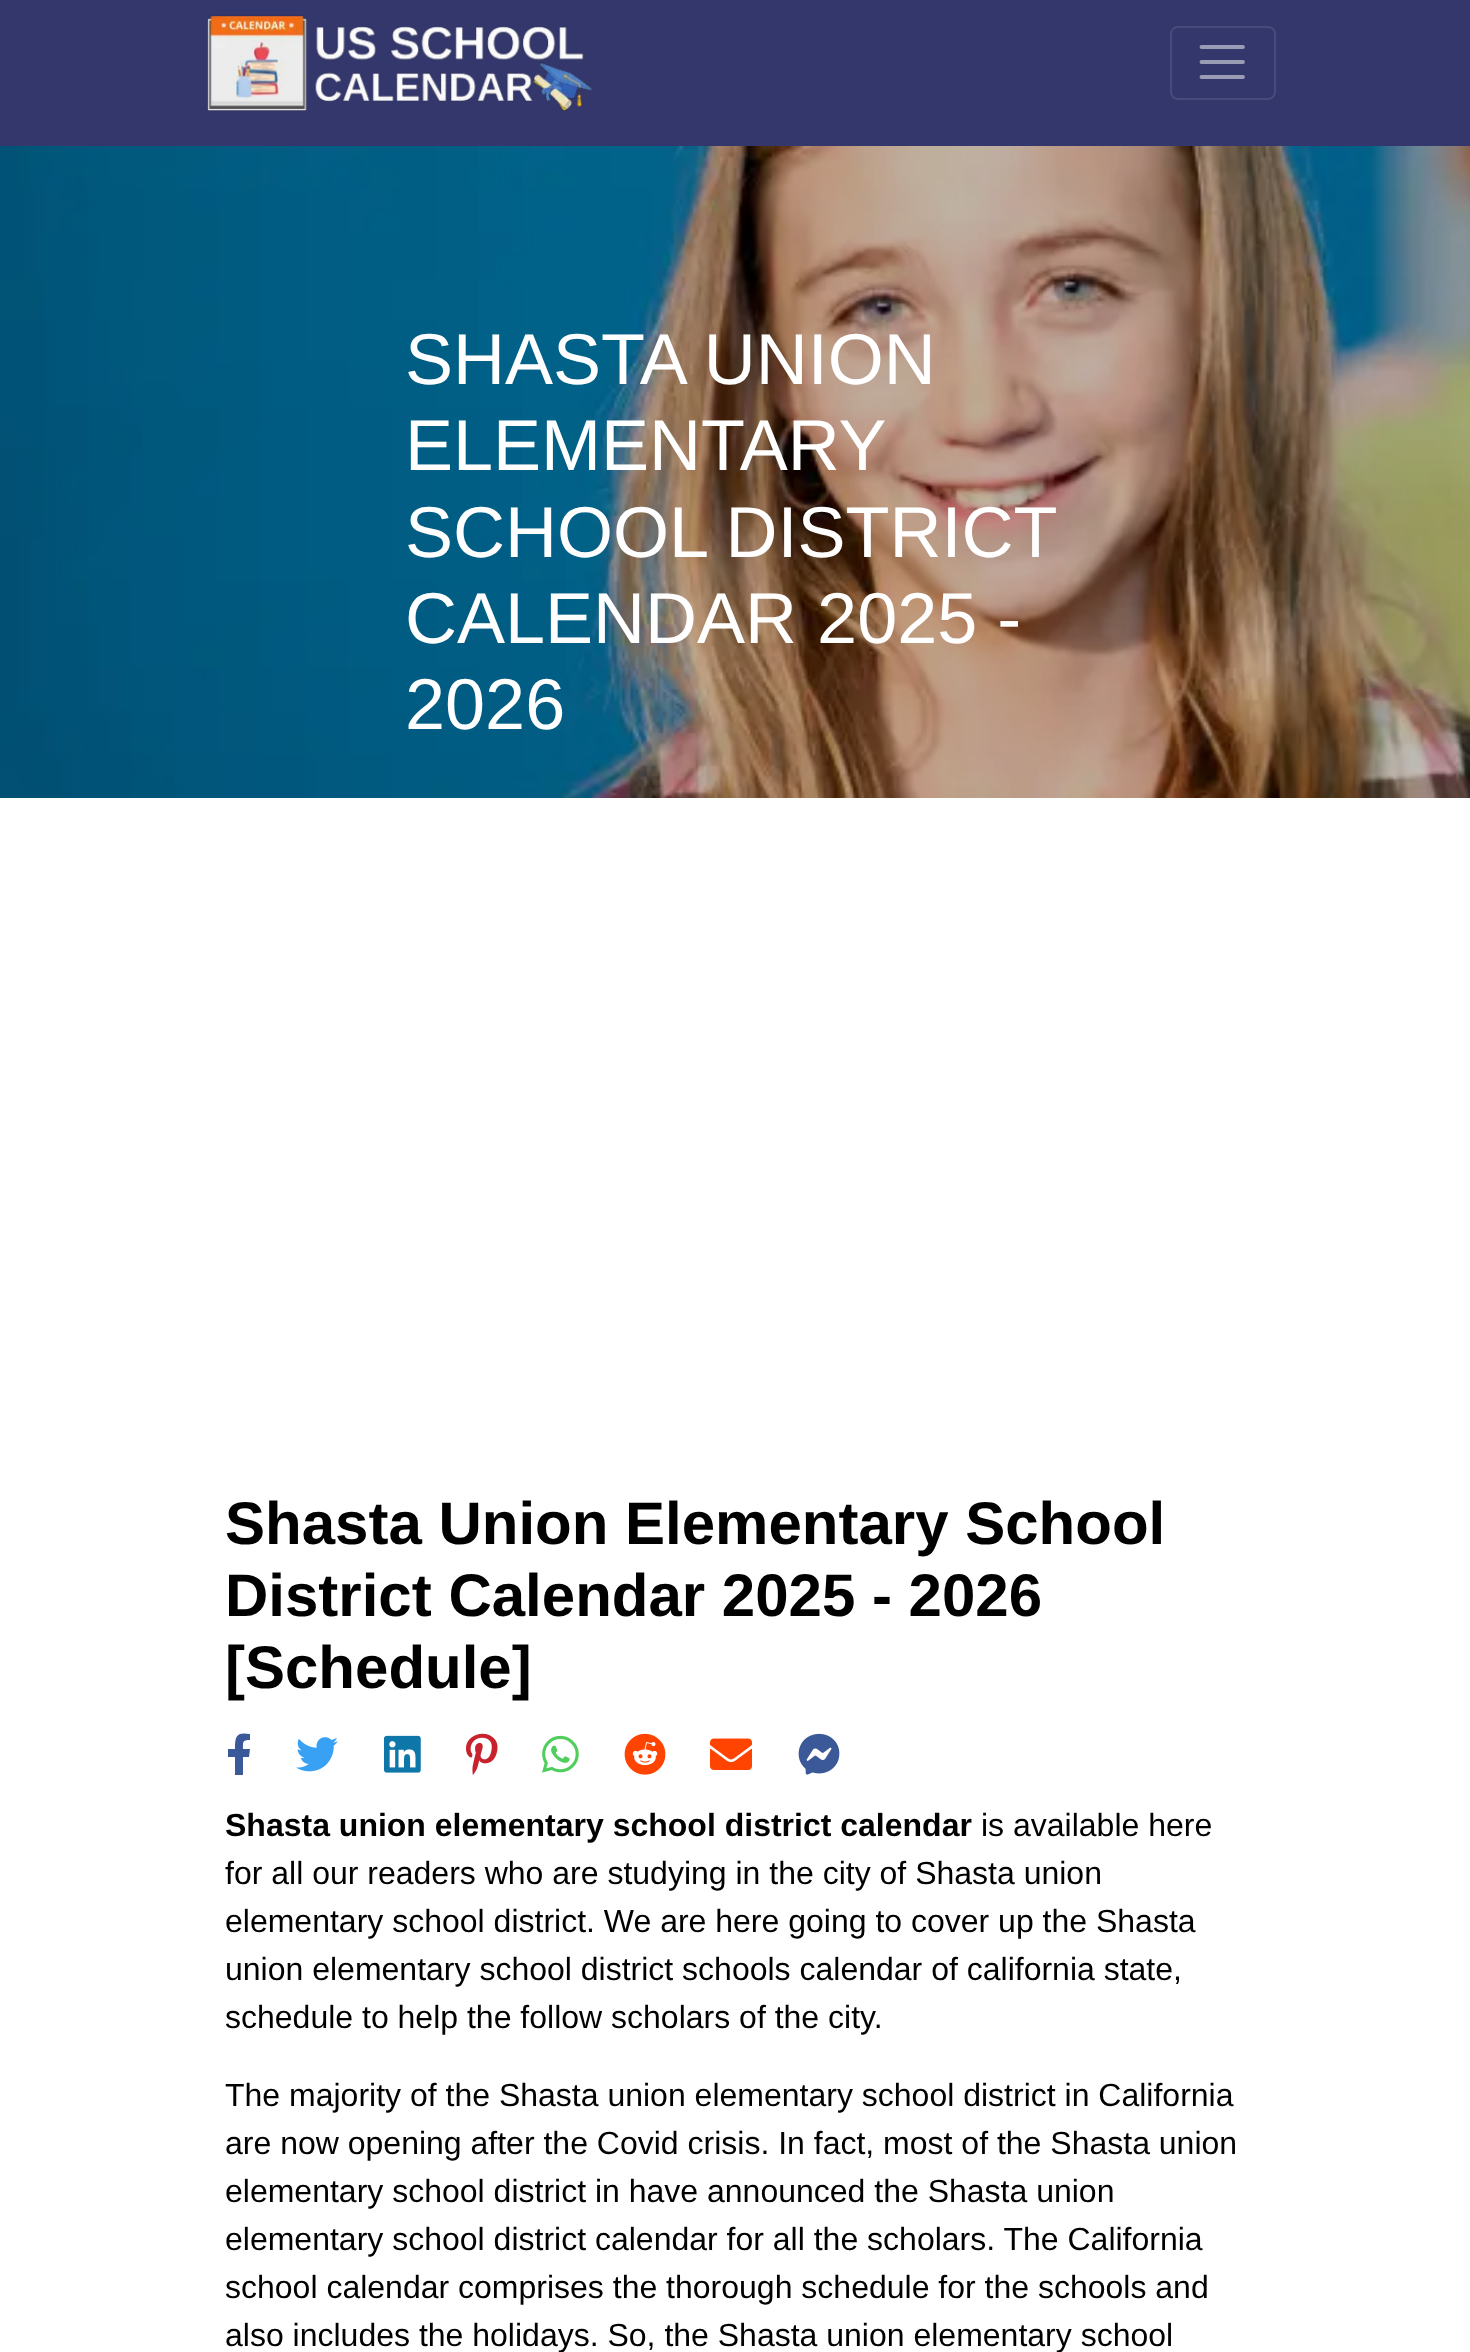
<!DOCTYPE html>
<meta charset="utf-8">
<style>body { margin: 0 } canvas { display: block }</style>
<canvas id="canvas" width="1470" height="2352"></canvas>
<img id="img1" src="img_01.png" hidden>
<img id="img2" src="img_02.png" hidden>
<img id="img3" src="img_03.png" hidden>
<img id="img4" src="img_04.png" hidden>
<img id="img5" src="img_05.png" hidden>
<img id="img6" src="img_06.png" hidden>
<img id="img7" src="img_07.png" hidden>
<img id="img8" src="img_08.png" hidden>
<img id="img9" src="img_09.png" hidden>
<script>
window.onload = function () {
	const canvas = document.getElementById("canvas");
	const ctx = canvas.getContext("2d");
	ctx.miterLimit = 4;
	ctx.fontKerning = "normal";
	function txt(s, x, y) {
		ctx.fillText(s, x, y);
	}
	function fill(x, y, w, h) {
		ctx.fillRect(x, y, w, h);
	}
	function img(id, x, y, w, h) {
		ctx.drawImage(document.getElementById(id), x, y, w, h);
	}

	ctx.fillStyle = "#FFFFFF";
	fill(0, 0, 1470, 2352);
	ctx.fillStyle = "#34376B";
	fill(0, 0, 1470, 146);
	img("img1", 207, 15, 385, 96);
	ctx.beginPath();
	ctx.roundRect(1171, 27, 104, 72, 7);
	ctx.strokeStyle = "#484B7A";
	ctx.lineWidth = 2;
	ctx.stroke();
	ctx.beginPath();
	ctx.moveTo(1201.5, 47);
	ctx.lineTo(1243, 47);
	ctx.moveTo(1201.5, 62);
	ctx.lineTo(1243, 62);
	ctx.moveTo(1201.5, 77);
	ctx.lineTo(1243, 77);
	ctx.strokeStyle = "#9A9BB5";
	ctx.lineWidth = 3.8;
	ctx.lineCap = "round";
	ctx.stroke();
	img("img2", 0, 146, 1470, 652);
	ctx.fillStyle = "#3B5998";
	ctx.beginPath();
	ctx.moveTo(249, 1757);
	ctx.lineTo(243, 1757);
	ctx.lineTo(243, 1775);
	ctx.lineTo(235, 1775);
	ctx.lineTo(235, 1757);
	ctx.lineTo(228, 1757);
	ctx.lineTo(228, 1749);
	ctx.lineTo(235, 1749);
	ctx.bezierCurveTo(235, 1735, 237, 1732, 250, 1734);
	ctx.lineTo(250, 1740);
	ctx.bezierCurveTo(242, 1740, 243, 1742, 243, 1749);
	ctx.lineTo(250, 1749);
	ctx.closePath();
	ctx.fill();
	img("img3", 296, 1737, 42, 35);
	img("img4", 384, 1735, 37, 38);
	img("img5", 466, 1733, 32, 42);
	img("img6", 542, 1735, 37, 38);
	img("img7", 624, 1733, 42, 42);
	img("img8", 710, 1738, 42, 32);
	img("img9", 798, 1733, 42, 42);
	ctx.font = "72px Liberation Sans";
	ctx.fillStyle = "#FFFFFF";
	txt("SHASTA UNION", 405, 384);
	txt("ELEMENTARY", 405, 470);
	ctx.wordSpacing = "-1px";
	txt("SCHOOL DISTRICT", 405, 557);
	ctx.wordSpacing = "0px";
	txt("CALENDAR 2025 -", 405, 643);
	txt("2026", 405, 729);
	ctx.font = "bold 60px Liberation Sans";
	ctx.fillStyle = "#000000";
	txt("Shasta Union Elementary School", 225, 1544);
	txt("District Calendar 2025 - 2026", 225, 1616);
	txt("[Schedule]", 225, 1688);
	ctx.font = "bold 32px Liberation Sans";
	txt("Shasta union elementary school district calendar", 225, 1836);
	ctx.font = "32px Liberation Sans";
	txt("is available here", 981, 1836);
	txt("for all our readers who are studying in the city of Shasta union", 225, 1884);
	txt("elementary school district. We are here going to cover up the Shasta", 225, 1932);
	txt("union elementary school district schools calendar of california state,", 225, 1980);
	txt("schedule to help the follow scholars of the city.", 225, 2028);
	txt("The majority of the Shasta union elementary school district in California", 225, 2106);
	txt("are now opening after the Covid crisis. In fact, most of the Shasta union", 225, 2154);
	txt("elementary school district in have announced the Shasta union", 225, 2202);
	txt("elementary school district calendar for all the scholars. The California", 225, 2250);
	txt("school calendar comprises the thorough schedule for the schools and", 225, 2298);
	txt("also includes the holidays. So, the Shasta union elementary school", 225, 2346);
};
</script>
